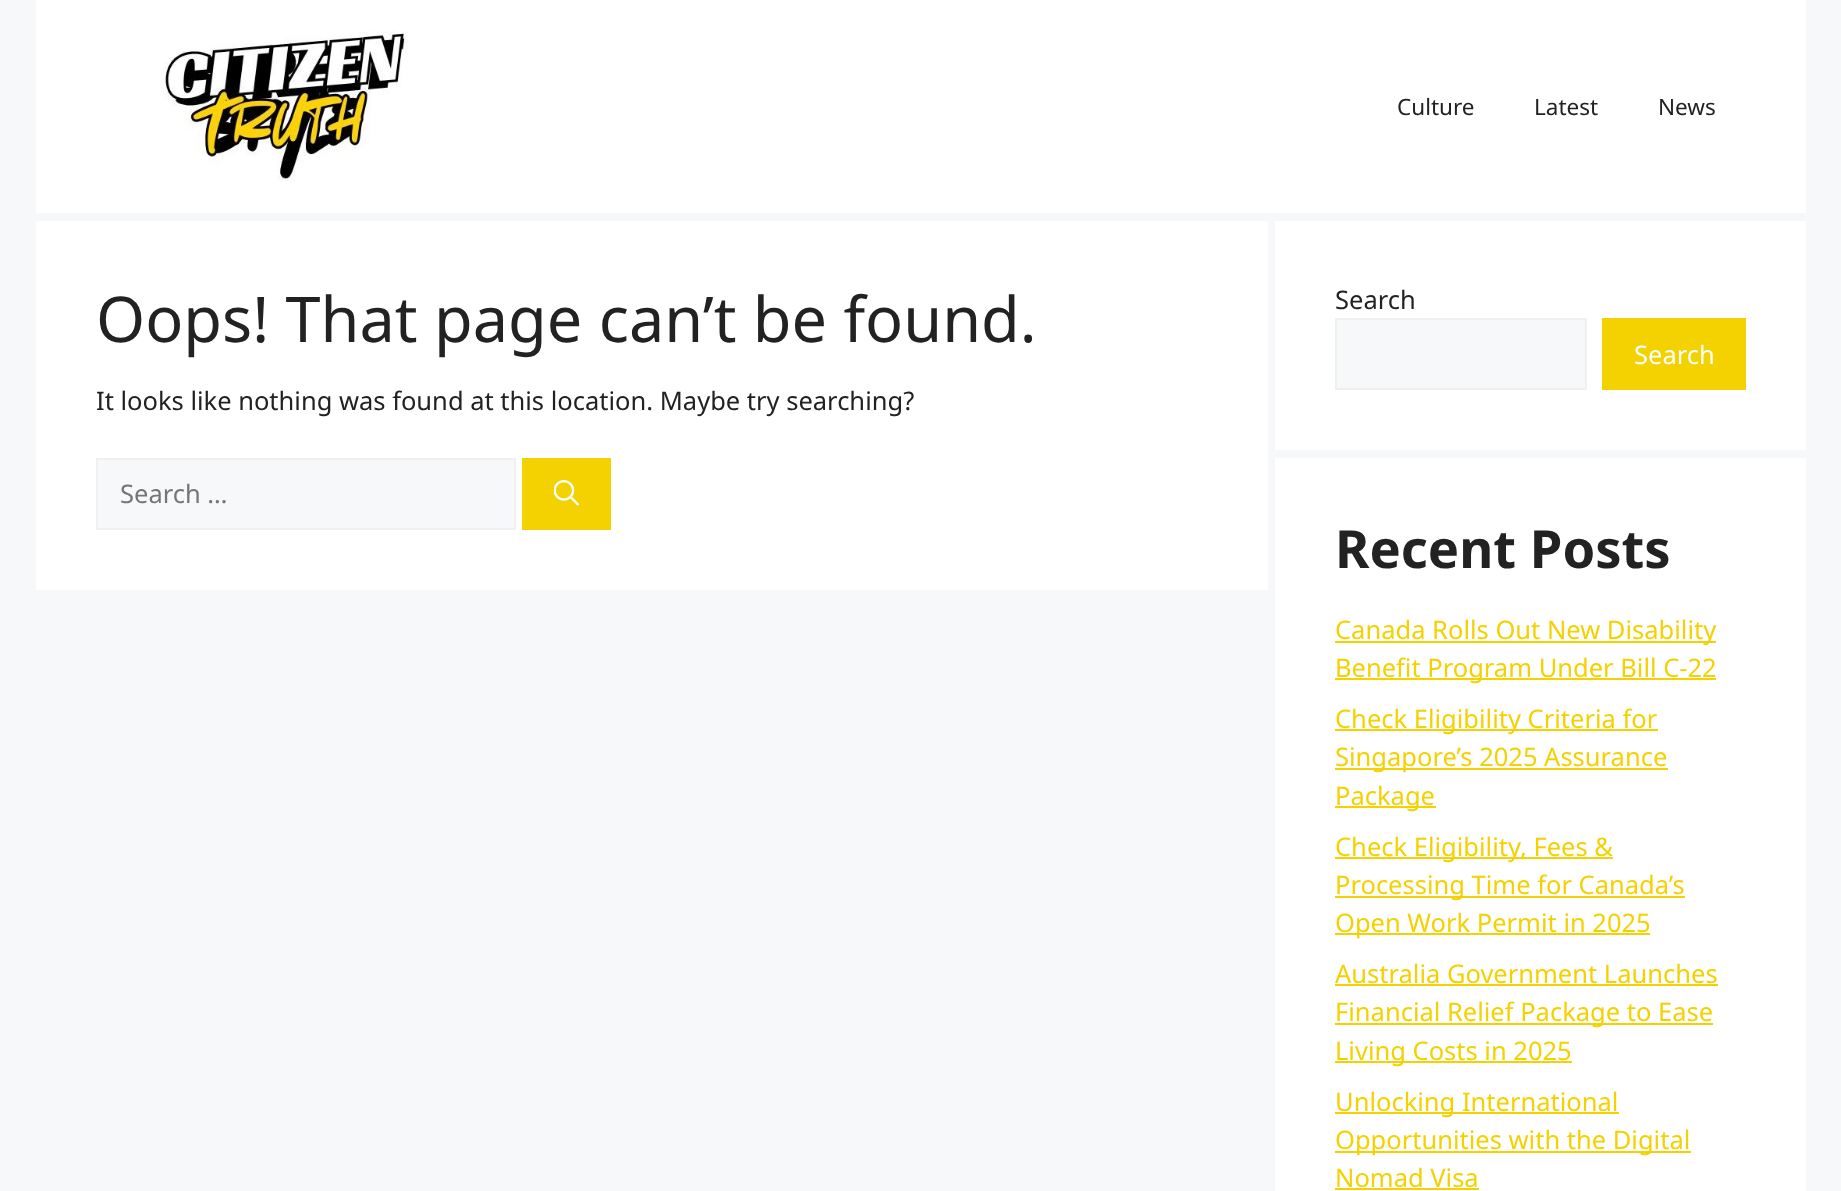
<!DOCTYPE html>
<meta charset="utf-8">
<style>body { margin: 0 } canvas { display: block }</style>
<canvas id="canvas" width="1841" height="1191"></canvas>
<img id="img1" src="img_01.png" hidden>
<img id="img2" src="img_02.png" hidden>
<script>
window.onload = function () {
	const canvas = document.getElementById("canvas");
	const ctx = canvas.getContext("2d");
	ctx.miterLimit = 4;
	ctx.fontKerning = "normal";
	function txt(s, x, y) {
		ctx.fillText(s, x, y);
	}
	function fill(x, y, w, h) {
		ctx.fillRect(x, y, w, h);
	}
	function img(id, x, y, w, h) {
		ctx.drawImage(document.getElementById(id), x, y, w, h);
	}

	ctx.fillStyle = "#F7F8F9";
	fill(0, 0, 1841, 1191);
	ctx.fillStyle = "#FFFFFF";
	fill(36, 0, 1770, 213);
	img("img1", 164, 30, 244, 151);
	fill(36, 221, 1232, 369);
	ctx.fillStyle = "#F7F8F9";
	ctx.beginPath();
	ctx.rect(97, 459, 418, 70);
	ctx.fill();
	ctx.strokeStyle = "#F0F0F0";
	ctx.lineWidth = 2;
	ctx.stroke();
	ctx.fillStyle = "#F4D100";
	fill(522, 458, 89, 72);
	img("img2", 554, 480, 25, 26);
	ctx.fillStyle = "#FFFFFF";
	fill(1275, 221, 531, 229);
	ctx.fillStyle = "#F7F8F9";
	ctx.beginPath();
	ctx.rect(1336, 319, 250, 70);
	ctx.fill();
	ctx.stroke();
	ctx.fillStyle = "#F4D100";
	fill(1602, 318, 144, 72);
	ctx.fillStyle = "#FFFFFF";
	fill(1275, 458, 531, 733);
	ctx.fillStyle = "#F4D100";
	fill(1335, 641, 381, 2);
	fill(1335, 678, 381, 2);
	fill(1335, 729, 323, 2);
	fill(1335, 768, 333, 2);
	fill(1335, 806, 101, 2);
	fill(1335, 857, 278, 2);
	fill(1335, 896, 350, 2);
	fill(1335, 933, 315, 2);
	fill(1335, 984, 383, 2);
	fill(1335, 1023, 378, 2);
	fill(1335, 1061, 237, 2);
	fill(1335, 1112, 284, 2);
	fill(1335, 1151, 356, 2);
	fill(1335, 1188, 144, 2);
	ctx.font = "22.5px Noto Sans";
	ctx.fillStyle = "#222222";
	txt("Culture", 1397, 115);
	txt("Latest", 1534, 115);
	txt("News", 1658, 115);
	ctx.font = "63px Noto Sans";
	txt("Oops! That page can’t be found.", 96, 342);
	ctx.font = "25.5px Noto Sans";
	txt("It looks like nothing was found at this location. Maybe try searching?", 96, 410);
	ctx.fillStyle = "#757575";
	txt("Search …", 120, 503);
	ctx.fillStyle = "#222222";
	txt("Search", 1335, 309);
	ctx.fillStyle = "#FFFFFF";
	txt("Search", 1634, 364);
	ctx.font = "bold 52.5px Noto Sans";
	ctx.fillStyle = "#222222";
	txt("Recent Posts", 1335, 568);
	ctx.font = "25.5px Noto Sans";
	ctx.fillStyle = "#F4D100";
	txt("Canada Rolls Out New Disability", 1335, 639);
	txt("Benefit Program Under Bill C-22", 1335, 677);
	txt("Check Eligibility Criteria for", 1335, 728);
	txt("Singapore’s 2025 Assurance", 1335, 766);
	txt("Package", 1335, 805);
	txt("Check Eligibility, Fees &", 1335, 856);
	txt("Processing Time for Canada’s", 1335, 894);
	txt("Open Work Permit in 2025", 1335, 932);
	txt("Australia Government Launches", 1335, 983);
	txt("Financial Relief Package to Ease", 1335, 1021);
	txt("Living Costs in 2025", 1335, 1060);
	txt("Unlocking International", 1335, 1111);
	txt("Opportunities with the Digital", 1335, 1149);
	txt("Nomad Visa", 1335, 1187);
};
</script>
